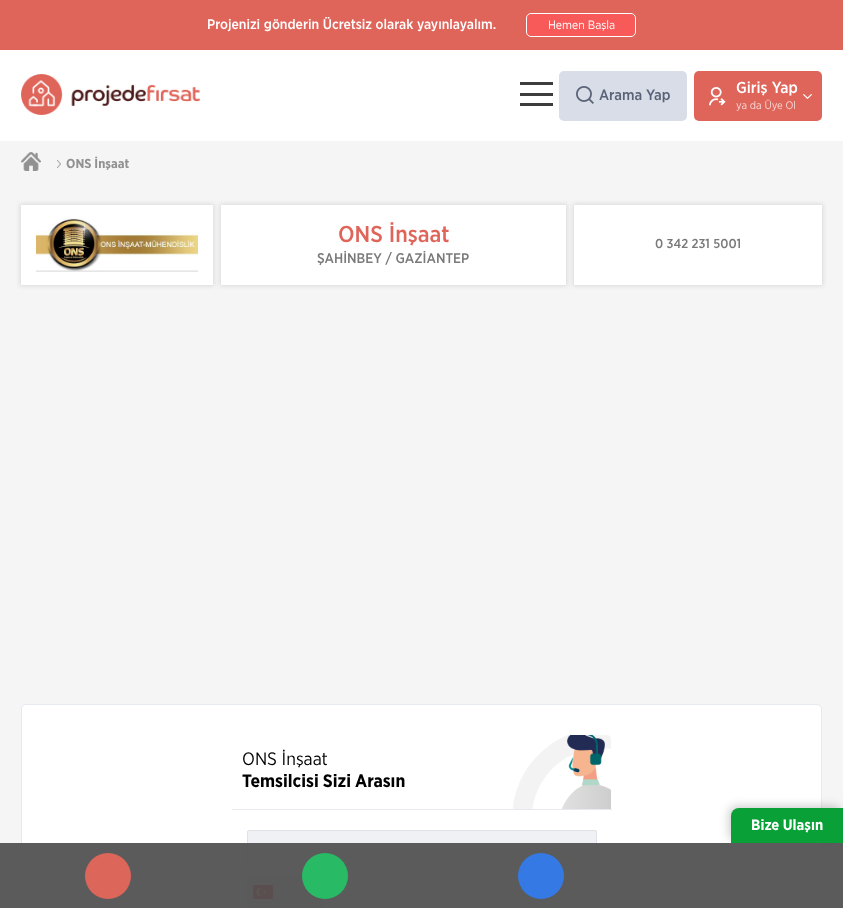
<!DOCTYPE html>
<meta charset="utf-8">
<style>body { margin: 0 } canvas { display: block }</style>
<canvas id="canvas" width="843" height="908"></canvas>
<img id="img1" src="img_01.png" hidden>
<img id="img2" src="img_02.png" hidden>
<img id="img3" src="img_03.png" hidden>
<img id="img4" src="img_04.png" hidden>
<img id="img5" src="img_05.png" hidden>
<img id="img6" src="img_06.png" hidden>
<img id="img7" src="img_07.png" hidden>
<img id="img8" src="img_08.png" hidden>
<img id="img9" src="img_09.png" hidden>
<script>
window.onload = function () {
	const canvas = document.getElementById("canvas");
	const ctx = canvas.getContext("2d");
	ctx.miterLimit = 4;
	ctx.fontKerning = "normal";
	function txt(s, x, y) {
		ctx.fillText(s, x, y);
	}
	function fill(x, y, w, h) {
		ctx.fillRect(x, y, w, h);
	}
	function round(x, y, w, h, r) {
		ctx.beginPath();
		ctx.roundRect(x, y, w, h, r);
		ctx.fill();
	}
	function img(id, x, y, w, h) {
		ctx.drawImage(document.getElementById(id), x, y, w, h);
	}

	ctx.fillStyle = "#F5F5F5";
	fill(0, 0, 843, 908);
	ctx.fillStyle = "#DF6459";
	fill(0, 0, 843, 50);
	ctx.fillStyle = "#F85959";
	ctx.beginPath();
	ctx.roundRect(526.5, 13.5, 109, 23, 4.5);
	ctx.fill();
	ctx.strokeStyle = "#FFFFFF";
	ctx.stroke();
	ctx.fillStyle = "#FFFFFF";
	fill(0, 50, 843, 91);
	img("img1", 21, 74, 180, 41);
	ctx.fillStyle = "#3D3D3D";
	fill(520, 82, 33, 3);
	fill(520, 93, 33, 3);
	fill(520, 103, 33, 3);
	ctx.fillStyle = "#D8DDE7";
	round(559, 71, 128, 50, 5);
	img("img2", 576, 86, 18, 18);
	ctx.fillStyle = "#DF6459";
	round(694, 71, 128, 50, 5);
	img("img3", 709, 87, 17, 19);
	img("img4", 803, 94, 9, 5);
	img("img5", 21, 152, 20, 19);
	img("img6", 57, 160, 4, 8);
	ctx.fillStyle = "#DADADA";
	ctx.filter = "blur(2px)";
	ctx.beginPath();
	ctx.rect(20, 204, 194, 82);
	ctx.fill();
	ctx.filter = "none";
	ctx.fillStyle = "#FFFFFF";
	fill(21, 205, 192, 80);
	img("img7", 36, 218, 162, 54);
	ctx.fillStyle = "#DADADA";
	ctx.filter = "blur(2px)";
	ctx.beginPath();
	ctx.rect(220, 204, 347, 82);
	ctx.fill();
	ctx.filter = "none";
	ctx.fillStyle = "#FFFFFF";
	fill(221, 205, 345, 80);
	ctx.fillStyle = "#DADADA";
	ctx.filter = "blur(2px)";
	ctx.beginPath();
	ctx.rect(573, 204, 250, 82);
	ctx.fill();
	ctx.filter = "none";
	ctx.fillStyle = "#FFFFFF";
	fill(574, 205, 248, 80);
	ctx.beginPath();
	ctx.roundRect(21.5, 704.5, 800, 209, 4.5);
	ctx.fill();
	ctx.strokeStyle = "#E7E9F1";
	ctx.stroke();
	ctx.fillStyle = "#E7E9F1";
	fill(232, 809, 380, 1);
	img("img8", 513, 735, 98, 74);
	ctx.fillStyle = "#F0F1F4";
	ctx.beginPath();
	ctx.roundRect(247.5, 830.5, 349, 34, 1.5);
	ctx.fill();
	ctx.strokeStyle = "#E0E1E6";
	ctx.stroke();
	ctx.beginPath();
	ctx.roundRect(247.5, 875.5, 349, 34, 1.5);
	ctx.fill();
	ctx.stroke();
	ctx.fillStyle = "rgba(0, 0, 0, 0.05)";
	fill(248, 876, 75, 32);
	ctx.fillStyle = "#888888";
	ctx.filter = "blur(0.5px)";
	ctx.beginPath();
	ctx.rect(253, 885, 20, 14);
	ctx.fill();
	ctx.filter = "none";
	img("img9", 253, 885, 20, 14);
	ctx.fillStyle = "rgba(0, 0, 0, 0.2)";
	ctx.filter = "blur(5px)";
	ctx.beginPath();
	ctx.roundRect(729, 806, 112, 35, 8);
	ctx.fill();
	ctx.filter = "none";
	ctx.fillStyle = "#08A037";
	ctx.beginPath();
	ctx.roundRect(731, 808, 112, 35, [8, 0, 0, 0]);
	ctx.fill();
	ctx.fillStyle = "rgba(82, 82, 82, 0.95)";
	fill(0, 843, 843, 65);
	ctx.fillStyle = "#DD665B";
	ctx.beginPath();
	ctx.arc(108, 876, 23, 0, Math.PI * 2);
	ctx.fill();
	ctx.fillStyle = "#28BA65";
	ctx.beginPath();
	ctx.arc(325, 876, 23, 0, Math.PI * 2);
	ctx.fill();
	ctx.fillStyle = "#3579E5";
	ctx.beginPath();
	ctx.arc(541, 876, 23, 0, Math.PI * 2);
	ctx.fill();
	ctx.font = "500 14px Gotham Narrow";
	ctx.fillStyle = "#FFFFFF";
	txt("Projenizi gönderin Ücretsiz olarak yayınlayalım.", 207, 29);
	ctx.font = "12px Gotham Narrow";
	txt("Hemen Başla", 548, 29);
	ctx.font = "500 15px Gotham Narrow";
	ctx.fillStyle = "#596276";
	txt("Arama Yap", 599, 100);
	ctx.font = "500 16px Gotham Narrow";
	ctx.fillStyle = "#FFFFFF";
	txt("Giriş Yap", 736, 93);
	ctx.font = "11px Gotham Narrow";
	ctx.fillStyle = "#F7D7D4";
	txt("ya da Üye Ol", 736, 109);
	ctx.font = "bold 13px Gotham Narrow";
	ctx.fillStyle = "#919191";
	txt("ONS İnşaat", 66, 168);
	ctx.font = "500 23px Gotham Narrow";
	ctx.fillStyle = "#DF6459";
	txt("ONS İnşaat", 338, 242);
	ctx.font = "500 14px Gotham Narrow";
	ctx.fillStyle = "#797979";
	txt("ŞAHİNBEY / GAZİANTEP", 317, 263);
	ctx.font = "500 13px Gotham Narrow";
	txt("0 342 231 5001", 655, 248);
	ctx.font = "18px Gotham Narrow";
	ctx.fillStyle = "#000000";
	txt("ONS İnşaat", 242, 765);
	ctx.font = "bold 18px Gotham Narrow";
	txt("Temsilcisi Sizi Arasın", 242, 787);
	ctx.font = "bold 15px Gotham Narrow";
	ctx.fillStyle = "#FFFFFF";
	txt("Bize Ulaşın", 751, 830);
};
</script>
